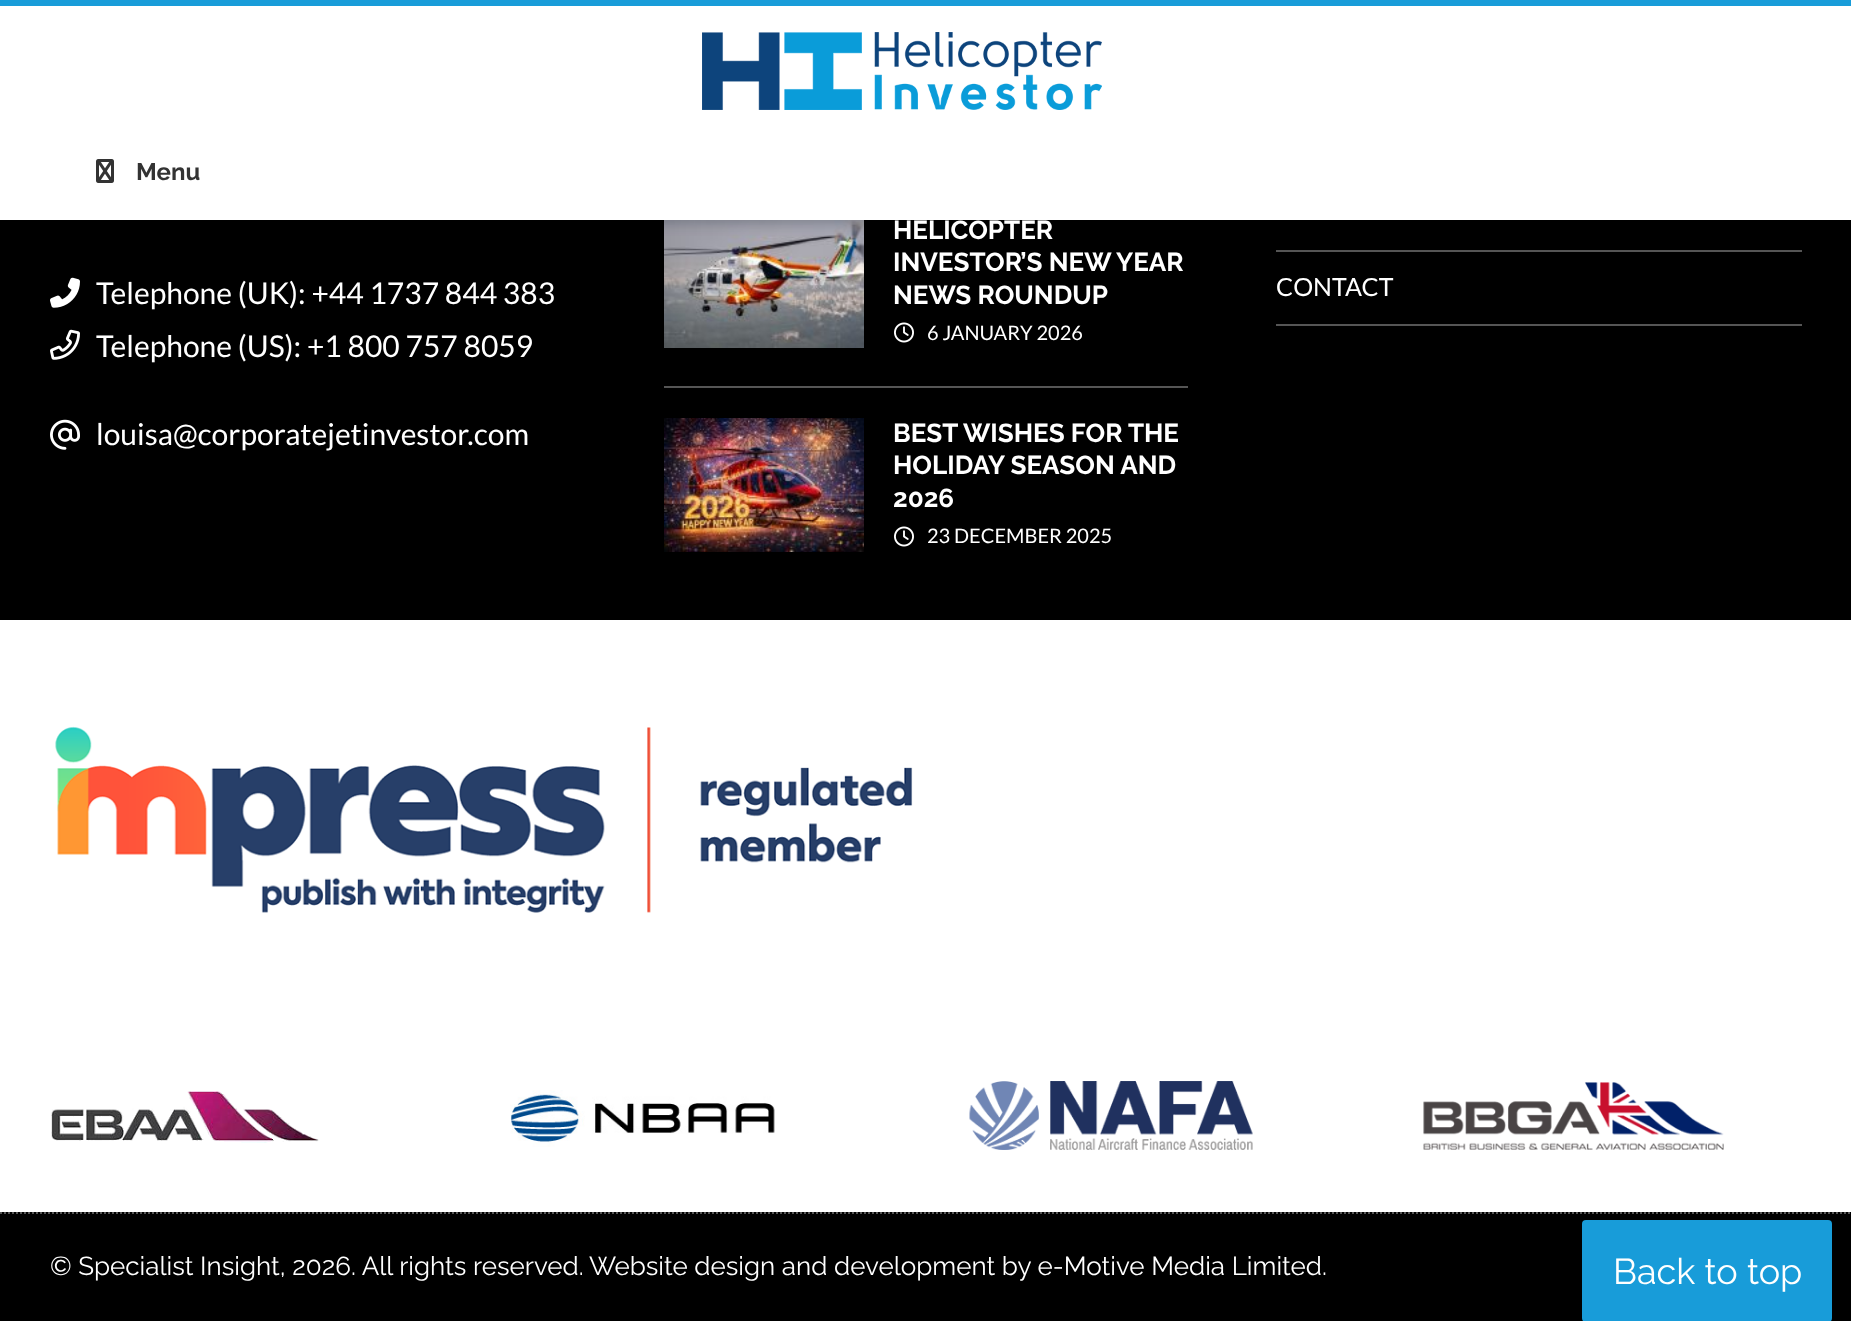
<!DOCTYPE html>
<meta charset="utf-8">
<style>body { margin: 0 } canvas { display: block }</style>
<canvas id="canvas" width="1851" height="1321"></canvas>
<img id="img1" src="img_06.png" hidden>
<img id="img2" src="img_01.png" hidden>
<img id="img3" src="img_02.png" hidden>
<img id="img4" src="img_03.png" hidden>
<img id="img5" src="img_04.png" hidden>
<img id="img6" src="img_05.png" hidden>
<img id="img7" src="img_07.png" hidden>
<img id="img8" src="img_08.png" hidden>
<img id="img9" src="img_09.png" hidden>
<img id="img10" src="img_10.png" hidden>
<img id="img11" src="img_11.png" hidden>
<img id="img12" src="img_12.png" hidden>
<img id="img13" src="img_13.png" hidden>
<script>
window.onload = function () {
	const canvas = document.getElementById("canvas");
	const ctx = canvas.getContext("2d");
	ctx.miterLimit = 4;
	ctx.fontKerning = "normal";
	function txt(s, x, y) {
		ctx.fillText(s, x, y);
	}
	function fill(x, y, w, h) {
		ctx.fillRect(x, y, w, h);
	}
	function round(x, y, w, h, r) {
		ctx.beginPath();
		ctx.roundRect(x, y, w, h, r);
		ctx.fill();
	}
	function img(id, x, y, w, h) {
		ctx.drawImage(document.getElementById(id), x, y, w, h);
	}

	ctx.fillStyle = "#FFFFFF";
	fill(0, 0, 1851, 1321);
	ctx.fillStyle = "#000000";
	fill(0, 220, 1851, 400);
	img("img1", 664, 220, 200, 128);
	ctx.fillStyle = "rgba(0, 0, 0, 0.2)";
	ctx.filter = "blur(6px)";
	ctx.beginPath();
	ctx.rect(0, 4, 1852, 220);
	ctx.fill();
	ctx.filter = "none";
	ctx.fillStyle = "#FFFFFF";
	fill(0, 6, 1851, 214);
	ctx.fillStyle = "#189CD9";
	fill(0, 0, 1851, 6);
	img("img2", 702, 32, 400, 78);
	img("img3", 96, 159, 18, 24);
	img("img4", 50, 277, 30, 31);
	img("img5", 50, 329, 30, 31);
	img("img6", 50, 419, 30, 31);
	ctx.fillStyle = "#555555";
	fill(664, 386, 524, 2);
	img("img7", 894, 322, 20, 21);
	img("img8", 664, 418, 200, 134);
	img("img7", 894, 526, 20, 21);
	fill(1276, 250, 526, 2);
	fill(1276, 324, 526, 2);
	ctx.fillStyle = "#000000";
	fill(0, 1212, 1851, 109);
	ctx.fillStyle = "#189CD9";
	round(1582, 1220, 250, 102, 4);
	img("img9", 55, 726, 858, 187);
	img("img10", 51, 1091, 268, 52);
	img("img11", 510, 1090, 265, 57);
	img("img12", 969, 1081, 284, 69);
	img("img13", 1423, 1082, 301, 68);
	ctx.beginPath();
	ctx.moveTo(0, 1213);
	ctx.lineTo(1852, 1213);
	ctx.strokeStyle = "#555555";
	ctx.lineWidth = 2;
	ctx.setLineDash([2, 2]);
	ctx.stroke();
	ctx.font = "bold 24px Raleway";
	ctx.fillStyle = "#333333";
	txt("Menu", 136, 180);
	ctx.font = "30px Lato";
	ctx.fillStyle = "#FFFFFF";
	txt("Telephone (UK): +44 1737 844 383", 96, 304);
	txt("Telephone (US): +1 800 757 8059", 96, 357);
	txt("louisa@corporatejetinvestor.com", 96, 445);
	ctx.font = "bold 26px Raleway";
	txt("HELICOPTER", 893, 239);
	txt("INVESTOR’S NEW YEAR", 893, 271);
	txt("NEWS ROUNDUP", 893, 304);
	ctx.font = "20px Lato";
	txt("6 JANUARY 2026", 927, 340);
	ctx.font = "bold 26px Raleway";
	txt("BEST WISHES FOR THE", 893, 442);
	txt("HOLIDAY SEASON AND", 893, 474);
	txt("2026", 893, 507);
	ctx.font = "20px Lato";
	txt("23 DECEMBER 2025", 927, 543);
	ctx.font = "25px Lato";
	txt("CONTACT", 1276, 296);
	ctx.font = "36px Raleway";
	txt("Back to top", 1613, 1284);
	ctx.font = "26px Raleway";
	txt("© Specialist Insight, 2026. All rights reserved.", 50, 1275);
	txt("Website design and development by e-Motive Media Limited.", 589, 1275);
};
</script>
